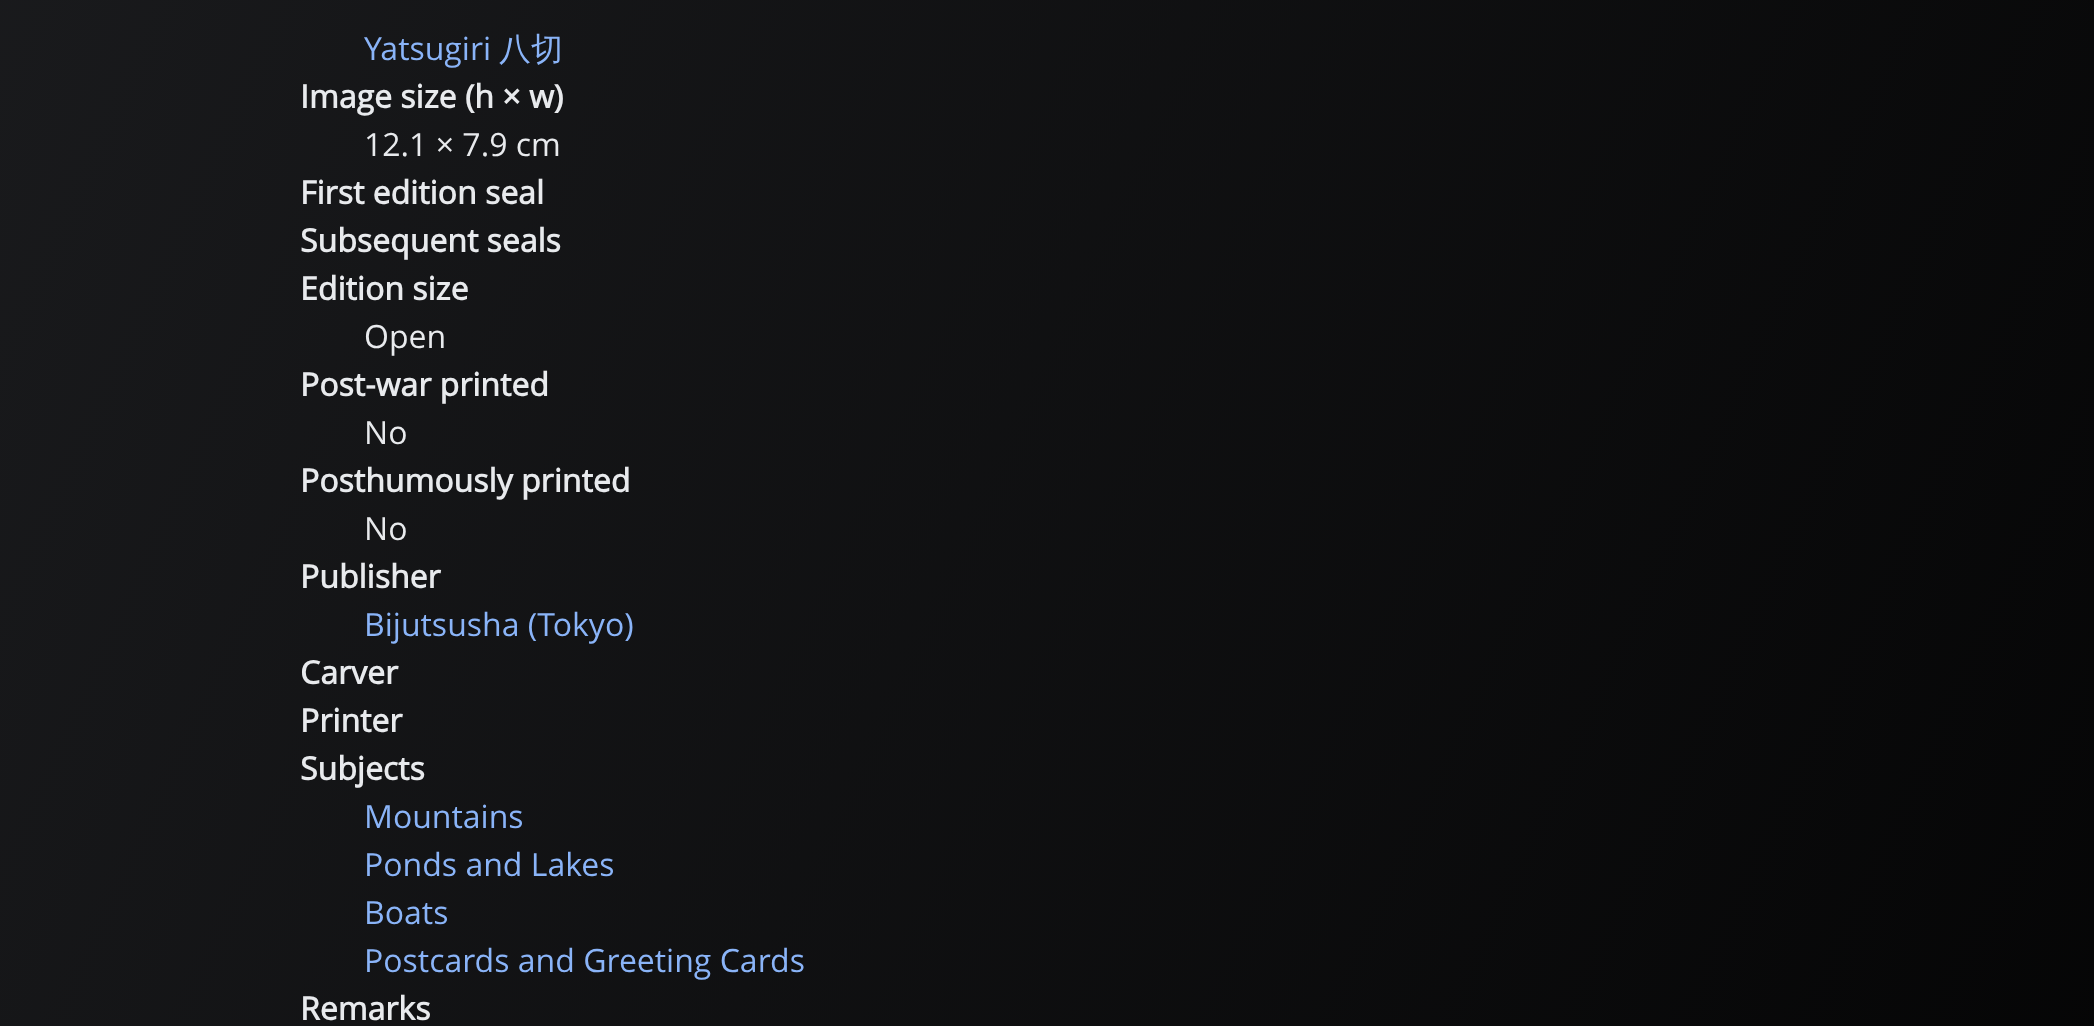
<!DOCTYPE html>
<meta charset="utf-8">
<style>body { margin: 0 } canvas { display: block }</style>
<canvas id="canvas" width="2094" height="1026"></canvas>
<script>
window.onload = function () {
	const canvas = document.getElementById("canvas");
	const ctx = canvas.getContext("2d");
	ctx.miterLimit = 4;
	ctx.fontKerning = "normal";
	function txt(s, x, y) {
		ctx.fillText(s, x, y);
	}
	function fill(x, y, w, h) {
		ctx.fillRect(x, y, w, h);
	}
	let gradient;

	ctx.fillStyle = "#FFFFFF";
	fill(0, 0, 2094, 1026);
	gradient = ctx.createLinearGradient(-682, -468, 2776, 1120);
	gradient.addColorStop(0, "#202124");
	gradient.addColorStop(1, "#000000");
	ctx.fillStyle = gradient;
	fill(0, 0, 2094, 1026);
	ctx.font = "32px Open Sans";
	ctx.fillStyle = "#8AB4F8";
	txt("Yatsugiri", 364, 60);
	ctx.font = "500 32px WenQuanYi Zen Hei";
	txt("八切", 499, 60);
	ctx.font = "bold 32px Open Sans";
	ctx.fillStyle = "#E8EAED";
	txt("Image size (h × w)", 300, 108);
	ctx.font = "32px Open Sans";
	txt("12.1 × 7.9 cm", 364, 156);
	ctx.font = "bold 32px Open Sans";
	txt("First edition seal", 300, 204);
	txt("Subsequent seals", 300, 252);
	txt("Edition size", 300, 300);
	ctx.font = "32px Open Sans";
	txt("Open", 364, 348);
	ctx.font = "bold 32px Open Sans";
	txt("Post-war printed", 300, 396);
	ctx.font = "32px Open Sans";
	txt("No", 364, 444);
	ctx.font = "bold 32px Open Sans";
	txt("Posthumously printed", 300, 492);
	ctx.font = "32px Open Sans";
	txt("No", 364, 540);
	ctx.font = "bold 32px Open Sans";
	txt("Publisher", 300, 588);
	ctx.font = "32px Open Sans";
	ctx.fillStyle = "#8AB4F8";
	txt("Bijutsusha (Tokyo)", 364, 636);
	ctx.font = "bold 32px Open Sans";
	ctx.fillStyle = "#E8EAED";
	txt("Carver", 300, 684);
	txt("Printer", 300, 732);
	txt("Subjects", 300, 780);
	ctx.font = "32px Open Sans";
	ctx.fillStyle = "#8AB4F8";
	txt("Mountains", 364, 828);
	txt("Ponds and Lakes", 364, 876);
	txt("Boats", 364, 924);
	txt("Postcards and Greeting Cards", 364, 972);
	ctx.font = "bold 32px Open Sans";
	ctx.fillStyle = "#E8EAED";
	txt("Remarks", 300, 1020);
};
</script>
